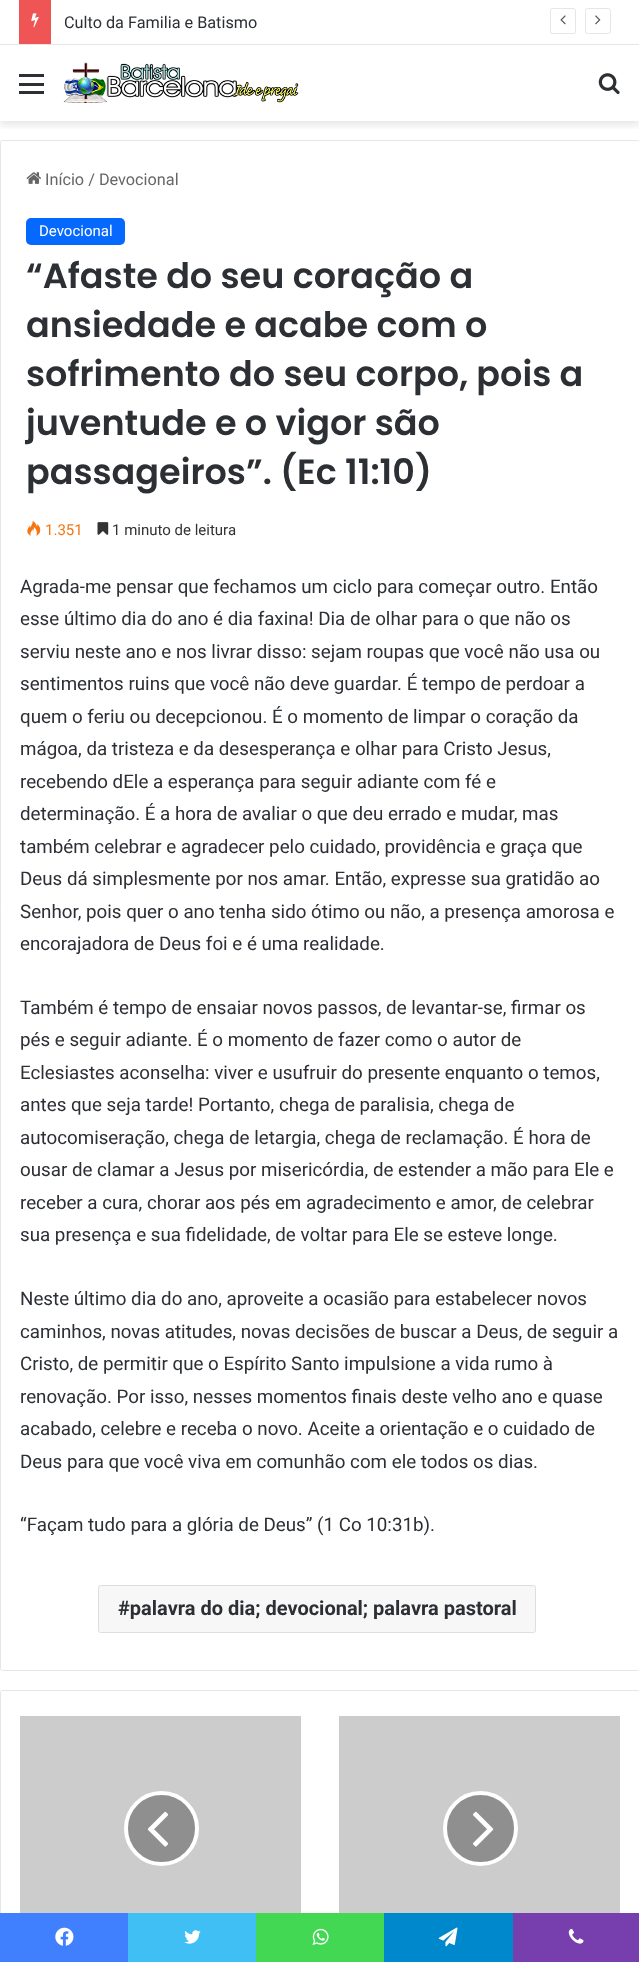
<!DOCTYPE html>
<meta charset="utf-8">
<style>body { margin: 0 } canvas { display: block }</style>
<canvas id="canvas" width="639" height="1962"></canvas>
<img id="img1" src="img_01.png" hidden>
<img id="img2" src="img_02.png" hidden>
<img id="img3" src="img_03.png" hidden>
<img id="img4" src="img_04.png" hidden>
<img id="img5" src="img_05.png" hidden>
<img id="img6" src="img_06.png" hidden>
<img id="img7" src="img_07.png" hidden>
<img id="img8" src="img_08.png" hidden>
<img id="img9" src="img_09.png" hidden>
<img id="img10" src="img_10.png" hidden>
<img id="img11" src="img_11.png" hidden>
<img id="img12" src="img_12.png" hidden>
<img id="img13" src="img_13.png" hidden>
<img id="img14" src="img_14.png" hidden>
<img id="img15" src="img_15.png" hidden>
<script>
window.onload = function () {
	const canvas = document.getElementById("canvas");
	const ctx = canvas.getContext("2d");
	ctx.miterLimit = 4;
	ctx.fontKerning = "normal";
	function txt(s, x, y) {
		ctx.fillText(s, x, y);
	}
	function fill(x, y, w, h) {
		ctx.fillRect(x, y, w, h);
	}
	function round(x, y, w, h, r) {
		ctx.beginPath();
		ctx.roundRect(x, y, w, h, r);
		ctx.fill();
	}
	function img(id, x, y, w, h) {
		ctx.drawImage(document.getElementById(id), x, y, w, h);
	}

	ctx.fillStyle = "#FFFFFF";
	fill(0, 0, 639, 1962);
	ctx.save();
	ctx.beginPath();
	ctx.rect(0, 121, 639, 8);
	ctx.clip();
	ctx.fillStyle = "rgba(0, 0, 0, 0.1)";
	ctx.filter = "blur(4.5px)";
	ctx.beginPath();
	ctx.rect(0, 49, 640, 76);
	ctx.fill();
	ctx.filter = "none";
	ctx.restore();
	fill(6, 43, 628, 1);
	ctx.fillStyle = "#E6E6E6";
	fill(0, 44, 639, 1);
	ctx.fillStyle = "#F05555";
	fill(19, 0, 32, 44);
	img("img1", 31, 13, 8, 15);
	ctx.beginPath();
	ctx.roundRect(550.5, 8.5, 25, 25, 2);
	ctx.strokeStyle = "#E6E6E6";
	ctx.stroke();
	img("img2", 560, 15, 6, 10);
	ctx.beginPath();
	ctx.roundRect(585.5, 8.5, 25, 25, 2);
	ctx.stroke();
	img("img3", 595, 15, 6, 10);
	ctx.fillStyle = "#2C2F34";
	fill(19, 83, 25, 3);
	fill(19, 74, 25, 3);
	fill(19, 91, 25, 3);
	img("img4", 63, 62, 236, 41);
	img("img5", 598, 73, 22, 22);
	ctx.beginPath();
	ctx.roundRect(0.5, 140.5, 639, 1530, 2);
	ctx.stroke();
	img("img6", 26, 172, 15, 12);
	ctx.fillStyle = "#0669FF";
	round(26, 218, 99, 27, 5);
	img("img7", 27, 521, 14, 15);
	img("img8", 97, 522, 12, 13);
	ctx.fillStyle = "#F7F7F7";
	ctx.beginPath();
	ctx.roundRect(98.5, 1585.5, 437, 47, 2);
	ctx.fill();
	ctx.strokeStyle = "#DEDEDE";
	ctx.stroke();
	ctx.beginPath();
	ctx.roundRect(0.5, 1690.5, 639, 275, 2);
	ctx.strokeStyle = "#E6E6E6";
	ctx.stroke();
	ctx.fillStyle = "#CCCCCC";
	fill(20, 1716, 281, 197);
	ctx.fillStyle = "#8F8F8F";
	ctx.beginPath();
	ctx.arc(161.5, 1828.5, 35.5, 0, Math.PI * 2);
	ctx.fill();
	ctx.strokeStyle = "#FFFFFF";
	ctx.lineWidth = 4;
	ctx.stroke();
	img("img9", 147, 1811, 22, 36);
	ctx.fillStyle = "#CCCCCC";
	fill(339, 1716, 281, 197);
	ctx.fillStyle = "#8F8F8F";
	ctx.beginPath();
	ctx.arc(480.5, 1828.5, 35.5, 0, Math.PI * 2);
	ctx.fill();
	ctx.stroke();
	img("img10", 473, 1811, 21, 36);
	ctx.fillStyle = "#4080FF";
	fill(0, 1913, 128, 49);
	img("img11", 55, 1927, 19, 19);
	ctx.fillStyle = "#40BFF5";
	fill(128, 1913, 128, 49);
	img("img12", 184, 1930, 17, 14);
	ctx.fillStyle = "#43D854";
	fill(256, 1913, 128, 49);
	img("img13", 312, 1928, 17, 17);
	ctx.fillStyle = "#0088CC";
	fill(384, 1913, 129, 49);
	img("img14", 438, 1927, 20, 20);
	ctx.fillStyle = "#773EAD";
	fill(513, 1913, 126, 49);
	img("img15", 568, 1928, 16, 16);
	ctx.font = "16.25px Roboto";
	ctx.fillStyle = "#2C2F34";
	txt("Culto da Familia e Batismo", 64, 28);
	ctx.fillStyle = "#666666";
	txt("Início / Devocional", 45, 185);
	ctx.font = "15px Roboto";
	ctx.fillStyle = "#FFFFFF";
	txt("Devocional", 39, 236);
	ctx.font = "600 35px Poppins";
	ctx.fillStyle = "#2C2F34";
	txt("“Afaste do seu coração a", 26, 288);
	txt("ansiedade e acabe com o", 26, 337);
	txt("sofrimento do seu corpo, pois a", 26, 386);
	txt("juventude e o vigor são", 26, 435);
	txt("passageiros”. (Ec 11:10)", 26, 484);
	ctx.font = "15px Roboto";
	ctx.fillStyle = "#F47512";
	txt("1.351", 45, 535);
	ctx.fillStyle = "#333333";
	txt("1 minuto de leitura", 112, 535);
	ctx.font = "18.75px Roboto";
	ctx.fillStyle = "#2C2F34";
	txt("Agrada-me pensar que fechamos um ciclo para começar outro. Então", 20, 593);
	txt("esse último dia do ano é dia faxina! Dia de olhar para o que não os", 20, 625);
	txt("serviu neste ano e nos livrar disso: sejam roupas que você não usa ou", 20, 658);
	txt("sentimentos ruins que você não deve guardar. É tempo de perdoar a", 20, 690);
	txt("quem o feriu ou decepcionou. É o momento de limpar o coração da", 20, 723);
	txt("mágoa, da tristeza e da desesperança e olhar para Cristo Jesus,", 20, 755);
	txt("recebendo dEle a esperança para seguir adiante com fé e", 20, 788);
	txt("determinação. É a hora de avaliar o que deu errado e mudar, mas", 20, 820);
	txt("também celebrar e agradecer pelo cuidado, providência e graça que", 20, 853);
	txt("Deus dá simplesmente por nos amar. Então, expresse sua gratidão ao", 20, 885);
	txt("Senhor, pois quer o ano tenha sido ótimo ou não, a presença amorosa e", 20, 918);
	txt("encorajadora de Deus foi e é uma realidade.", 20, 950);
	txt("Também é tempo de ensaiar novos passos, de levantar-se, firmar os", 20, 1014);
	txt("pés e seguir adiante. É o momento de fazer como o autor de", 20, 1046);
	txt("Eclesiastes aconselha: viver e usufruir do presente enquanto o temos,", 20, 1079);
	txt("antes que seja tarde! Portanto, chega de paralisia, chega de", 20, 1111);
	txt("autocomiseração, chega de letargia, chega de reclamação. É hora de", 20, 1144);
	txt("ousar de clamar a Jesus por misericórdia, de estender a mão para Ele e", 20, 1176);
	txt("receber a cura, chorar aos pés em agradecimento e amor, de celebrar", 20, 1209);
	txt("sua presença e sua fidelidade, de voltar para Ele se esteve longe.", 20, 1241);
	txt("Neste último dia do ano, aproveite a ocasião para estabelecer novos", 20, 1305);
	txt("caminhos, novas atitudes, novas decisões de buscar a Deus, de seguir a", 20, 1338);
	txt("Cristo, de permitir que o Espírito Santo impulsione a vida rumo à", 20, 1370);
	txt("renovação. Por isso, nesses momentos finais deste velho ano e quase", 20, 1403);
	txt("acabado, celebre e receba o novo. Aceite a orientação e o cuidado de", 20, 1435);
	txt("Deus para que você viva em comunhão com ele todos os dias.", 20, 1468);
	txt("“Façam tudo para a glória de Deus” (1 Co 10:31b).", 20, 1531);
	ctx.font = "bold 20px Roboto";
	txt("#palavra do dia; devocional; palavra pastoral", 118, 1615);
};
</script>
